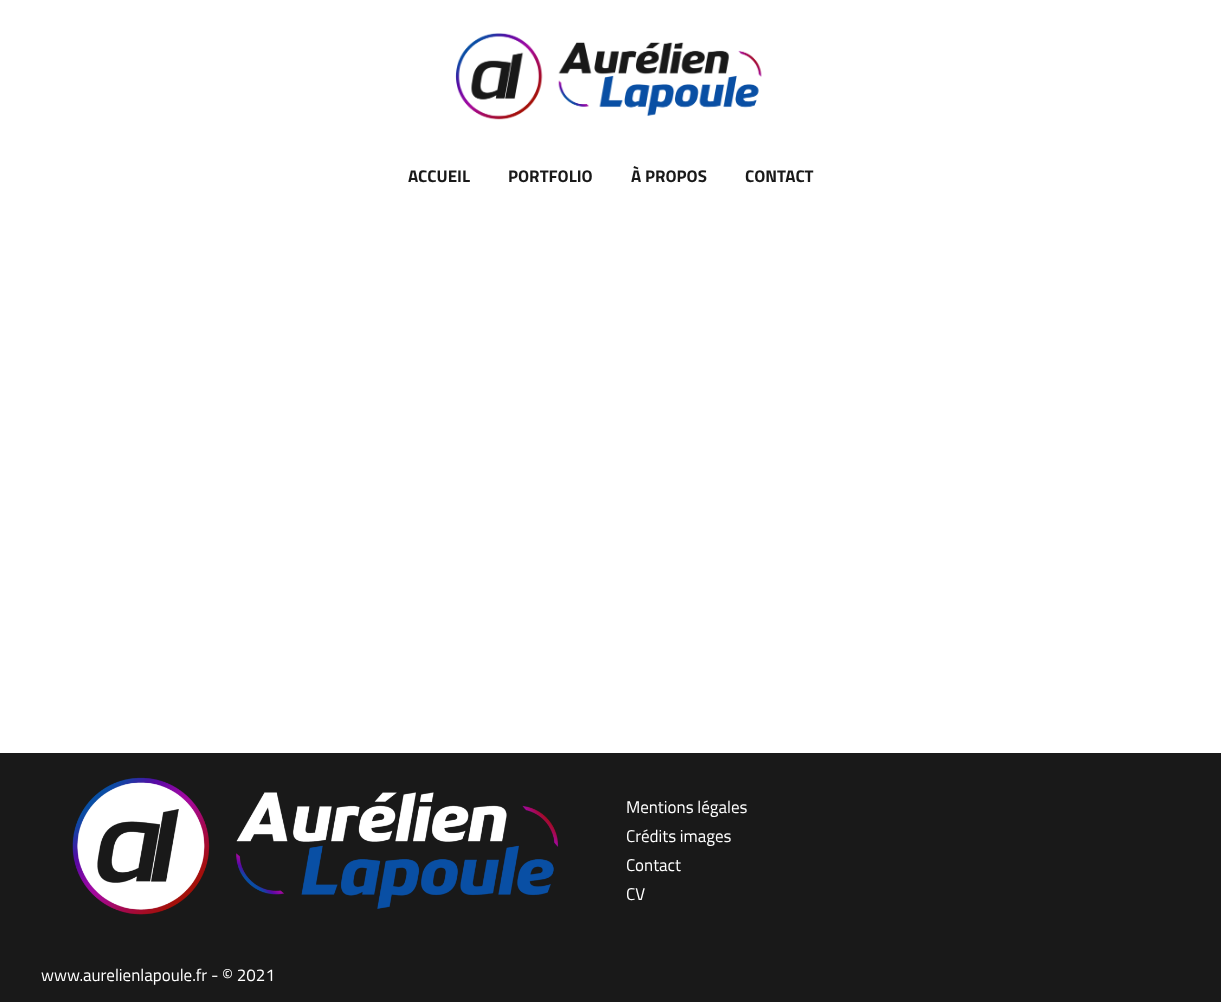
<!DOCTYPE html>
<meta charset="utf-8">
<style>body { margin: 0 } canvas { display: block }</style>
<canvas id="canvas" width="1221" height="1002"></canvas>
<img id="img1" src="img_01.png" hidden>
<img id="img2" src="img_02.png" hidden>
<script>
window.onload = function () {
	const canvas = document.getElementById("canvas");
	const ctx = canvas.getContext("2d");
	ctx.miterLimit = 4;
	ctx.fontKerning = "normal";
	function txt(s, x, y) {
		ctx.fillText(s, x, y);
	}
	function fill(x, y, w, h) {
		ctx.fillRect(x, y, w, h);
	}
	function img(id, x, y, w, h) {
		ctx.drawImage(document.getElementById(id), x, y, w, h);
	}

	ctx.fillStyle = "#FFFFFF";
	fill(0, 0, 1221, 1002);
	img("img1", 455, 33, 307, 87);
	ctx.fillStyle = "#191919";
	fill(0, 753, 1221, 249);
	img("img2", 72, 777, 487, 138);
	ctx.font = "bold 17px Titillium Web";
	txt("ACCUEIL", 408, 182);
	txt("PORTFOLIO", 508, 182);
	txt("À PROPOS", 631, 182);
	txt("CONTACT", 745, 182);
	ctx.font = "17px Titillium Web";
	ctx.fillStyle = "#FFFFFF";
	txt("Mentions légales", 626, 813);
	txt("Crédits images", 626, 842);
	txt("Contact", 626, 871);
	txt("CV", 626, 900);
	txt("www.aurelienlapoule.fr - © 2021", 41, 981);
};
</script>
